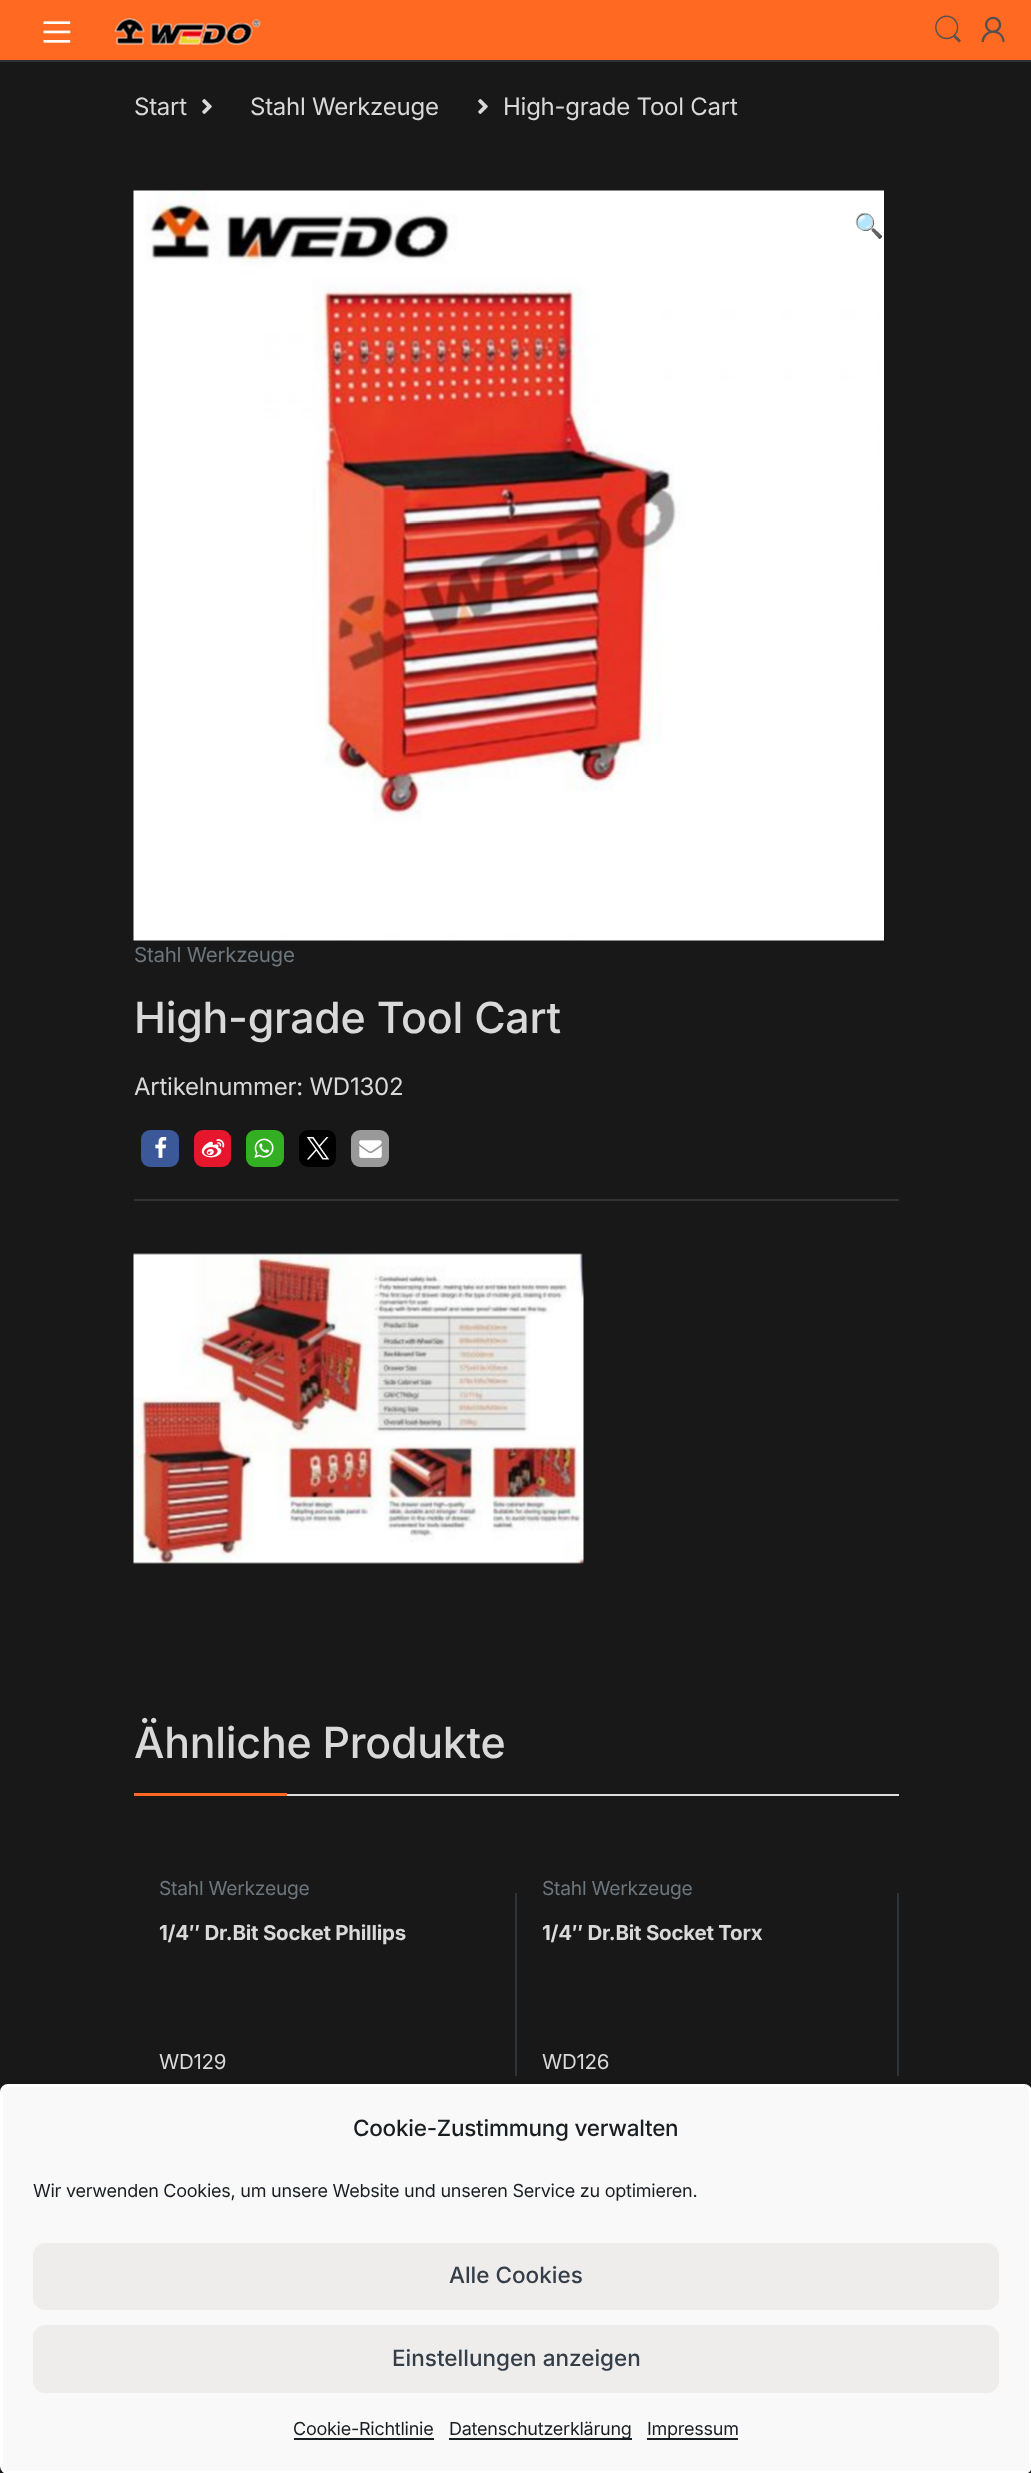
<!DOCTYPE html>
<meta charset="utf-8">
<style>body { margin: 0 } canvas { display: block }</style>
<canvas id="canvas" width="1031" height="2473"></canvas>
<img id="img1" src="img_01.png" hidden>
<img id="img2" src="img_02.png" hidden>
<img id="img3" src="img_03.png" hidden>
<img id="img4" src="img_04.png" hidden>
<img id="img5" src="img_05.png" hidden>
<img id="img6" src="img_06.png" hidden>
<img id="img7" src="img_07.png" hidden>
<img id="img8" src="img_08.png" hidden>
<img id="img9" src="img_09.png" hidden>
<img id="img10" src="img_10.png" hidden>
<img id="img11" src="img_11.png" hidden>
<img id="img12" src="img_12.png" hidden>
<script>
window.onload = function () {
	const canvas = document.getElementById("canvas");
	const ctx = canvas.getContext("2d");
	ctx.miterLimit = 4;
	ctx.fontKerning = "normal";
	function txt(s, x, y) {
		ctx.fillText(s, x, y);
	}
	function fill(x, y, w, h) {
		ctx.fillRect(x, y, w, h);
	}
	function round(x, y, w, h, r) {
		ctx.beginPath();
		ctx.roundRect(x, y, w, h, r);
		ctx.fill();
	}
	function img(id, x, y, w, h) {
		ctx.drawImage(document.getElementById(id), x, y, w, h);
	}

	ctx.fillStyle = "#181818";
	fill(0, 0, 1031, 2473);
	ctx.fillStyle = "#2E3035";
	fill(0, 60, 1031, 2);
	ctx.fillStyle = "#FF6922";
	fill(0, 0, 1031, 60);
	img("img1", 43, 21, 28, 22);
	img("img2", 114, 18, 147, 27);
	img("img3", 935, 15, 26, 28);
	img("img4", 981, 16, 24, 27);
	img("img5", 202, 99, 10, 15);
	img("img5", 478, 99, 10, 15);
	img("img6", 133, 190, 751, 751);
	ctx.fillStyle = "#3B5998";
	round(141, 1130, 38, 37, 9);
	img("img7", 155, 1136, 12, 22);
	ctx.fillStyle = "#E6162D";
	round(194, 1130, 37, 37, 9);
	img("img8", 201, 1139, 24, 19);
	ctx.fillStyle = "#34AF23";
	round(246, 1130, 38, 37, 9);
	img("img9", 254, 1138, 20, 20);
	ctx.fillStyle = "#000000";
	round(299, 1130, 37, 37, 9);
	img("img10", 306, 1137, 24, 23);
	ctx.fillStyle = "#999999";
	round(351, 1130, 38, 37, 9);
	img("img11", 359, 1140, 23, 18);
	ctx.fillStyle = "#2F3336";
	fill(134, 1199, 765, 2);
	img("img12", 133, 1253, 451, 311);
	ctx.fillStyle = "#DDDDDD";
	fill(287, 1794, 612, 2);
	ctx.fillStyle = "#FF6922";
	fill(134, 1793, 153, 3);
	ctx.fillStyle = "#2F3336";
	fill(515, 1893, 2, 183);
	fill(897, 1893, 2, 183);
	ctx.fillStyle = "#F9F9F9";
	ctx.beginPath();
	ctx.roundRect(1.5, 2085.5, 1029, 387, 6.5);
	ctx.fill();
	ctx.strokeStyle = "#FFFFFF";
	ctx.lineWidth = 3;
	ctx.stroke();
	ctx.fillStyle = "#EFECEC";
	ctx.beginPath();
	ctx.roundRect(34, 2244, 964, 65, 11);
	ctx.fill();
	ctx.strokeStyle = "#EFECEC";
	ctx.lineWidth = 2;
	ctx.stroke();
	ctx.beginPath();
	ctx.roundRect(34, 2326, 964, 66, 11);
	ctx.fill();
	ctx.stroke();
	ctx.fillStyle = "#191E23";
	fill(294, 2438, 140, 2);
	fill(449, 2438, 183, 2);
	fill(647, 2438, 91, 2);
	ctx.letterSpacing = "-0.25px";
	ctx.font = "24px Inter";
	ctx.fillStyle = "#D9D9D9";
	txt("Start", 134, 115);
	txt("Stahl Werkzeuge", 250, 115);
	txt("High-grade Tool Cart", 503, 115);
	ctx.font = "24px Noto Color Emoji";
	txt("🔍", 854, 234);
	ctx.font = "20.5px Inter";
	ctx.fillStyle = "#6E767D";
	txt("Stahl Werkzeuge", 134, 962);
	ctx.font = "500 42.9px Inter";
	ctx.fillStyle = "#D9D9D9";
	txt("High-grade Tool Cart", 134, 1033);
	ctx.font = "24px Inter";
	txt("Artikelnummer: WD1302", 134, 1095);
	ctx.font = "500 42.9px Inter";
	txt("Ähnliche Produkte", 134, 1758);
	ctx.font = "19.25px Inter";
	ctx.fillStyle = "#6E767D";
	txt("Stahl Werkzeuge", 159, 1895);
	ctx.font = "bold 20.5px Inter";
	ctx.fillStyle = "#D9D9D9";
	txt("1/4″ Dr.Bit Socket Phillips", 159, 1940);
	ctx.font = "20.5px Inter";
	txt("WD129", 159, 2069);
	ctx.font = "19.25px Inter";
	ctx.fillStyle = "#6E767D";
	txt("Stahl Werkzeuge", 542, 1895);
	ctx.font = "bold 20.5px Inter";
	ctx.fillStyle = "#D9D9D9";
	txt("1/4″ Dr.Bit Socket Torx", 542, 1940);
	ctx.font = "20.5px Inter";
	txt("WD126", 542, 2069);
	ctx.font = "500 22.5px Inter";
	ctx.fillStyle = "#191E23";
	txt("Cookie-Zustimmung verwalten", 353, 2136);
	ctx.font = "18px Inter";
	txt("Wir verwenden Cookies, um unsere Website und unseren Service zu optimieren.", 33, 2197);
	ctx.letterSpacing = "0px";
	ctx.font = "500 22.5px Inter";
	ctx.fillStyle = "#333E48";
	txt("Alle Cookies", 449, 2283);
	txt("Einstellungen anzeigen", 392, 2366);
	ctx.letterSpacing = "-0.25px";
	ctx.font = "18px Inter";
	ctx.fillStyle = "#191E23";
	txt("Cookie-Richtlinie", 293, 2435);
	txt("Datenschutzerklärung", 449, 2435);
	txt("Impressum", 647, 2435);
};
</script>
